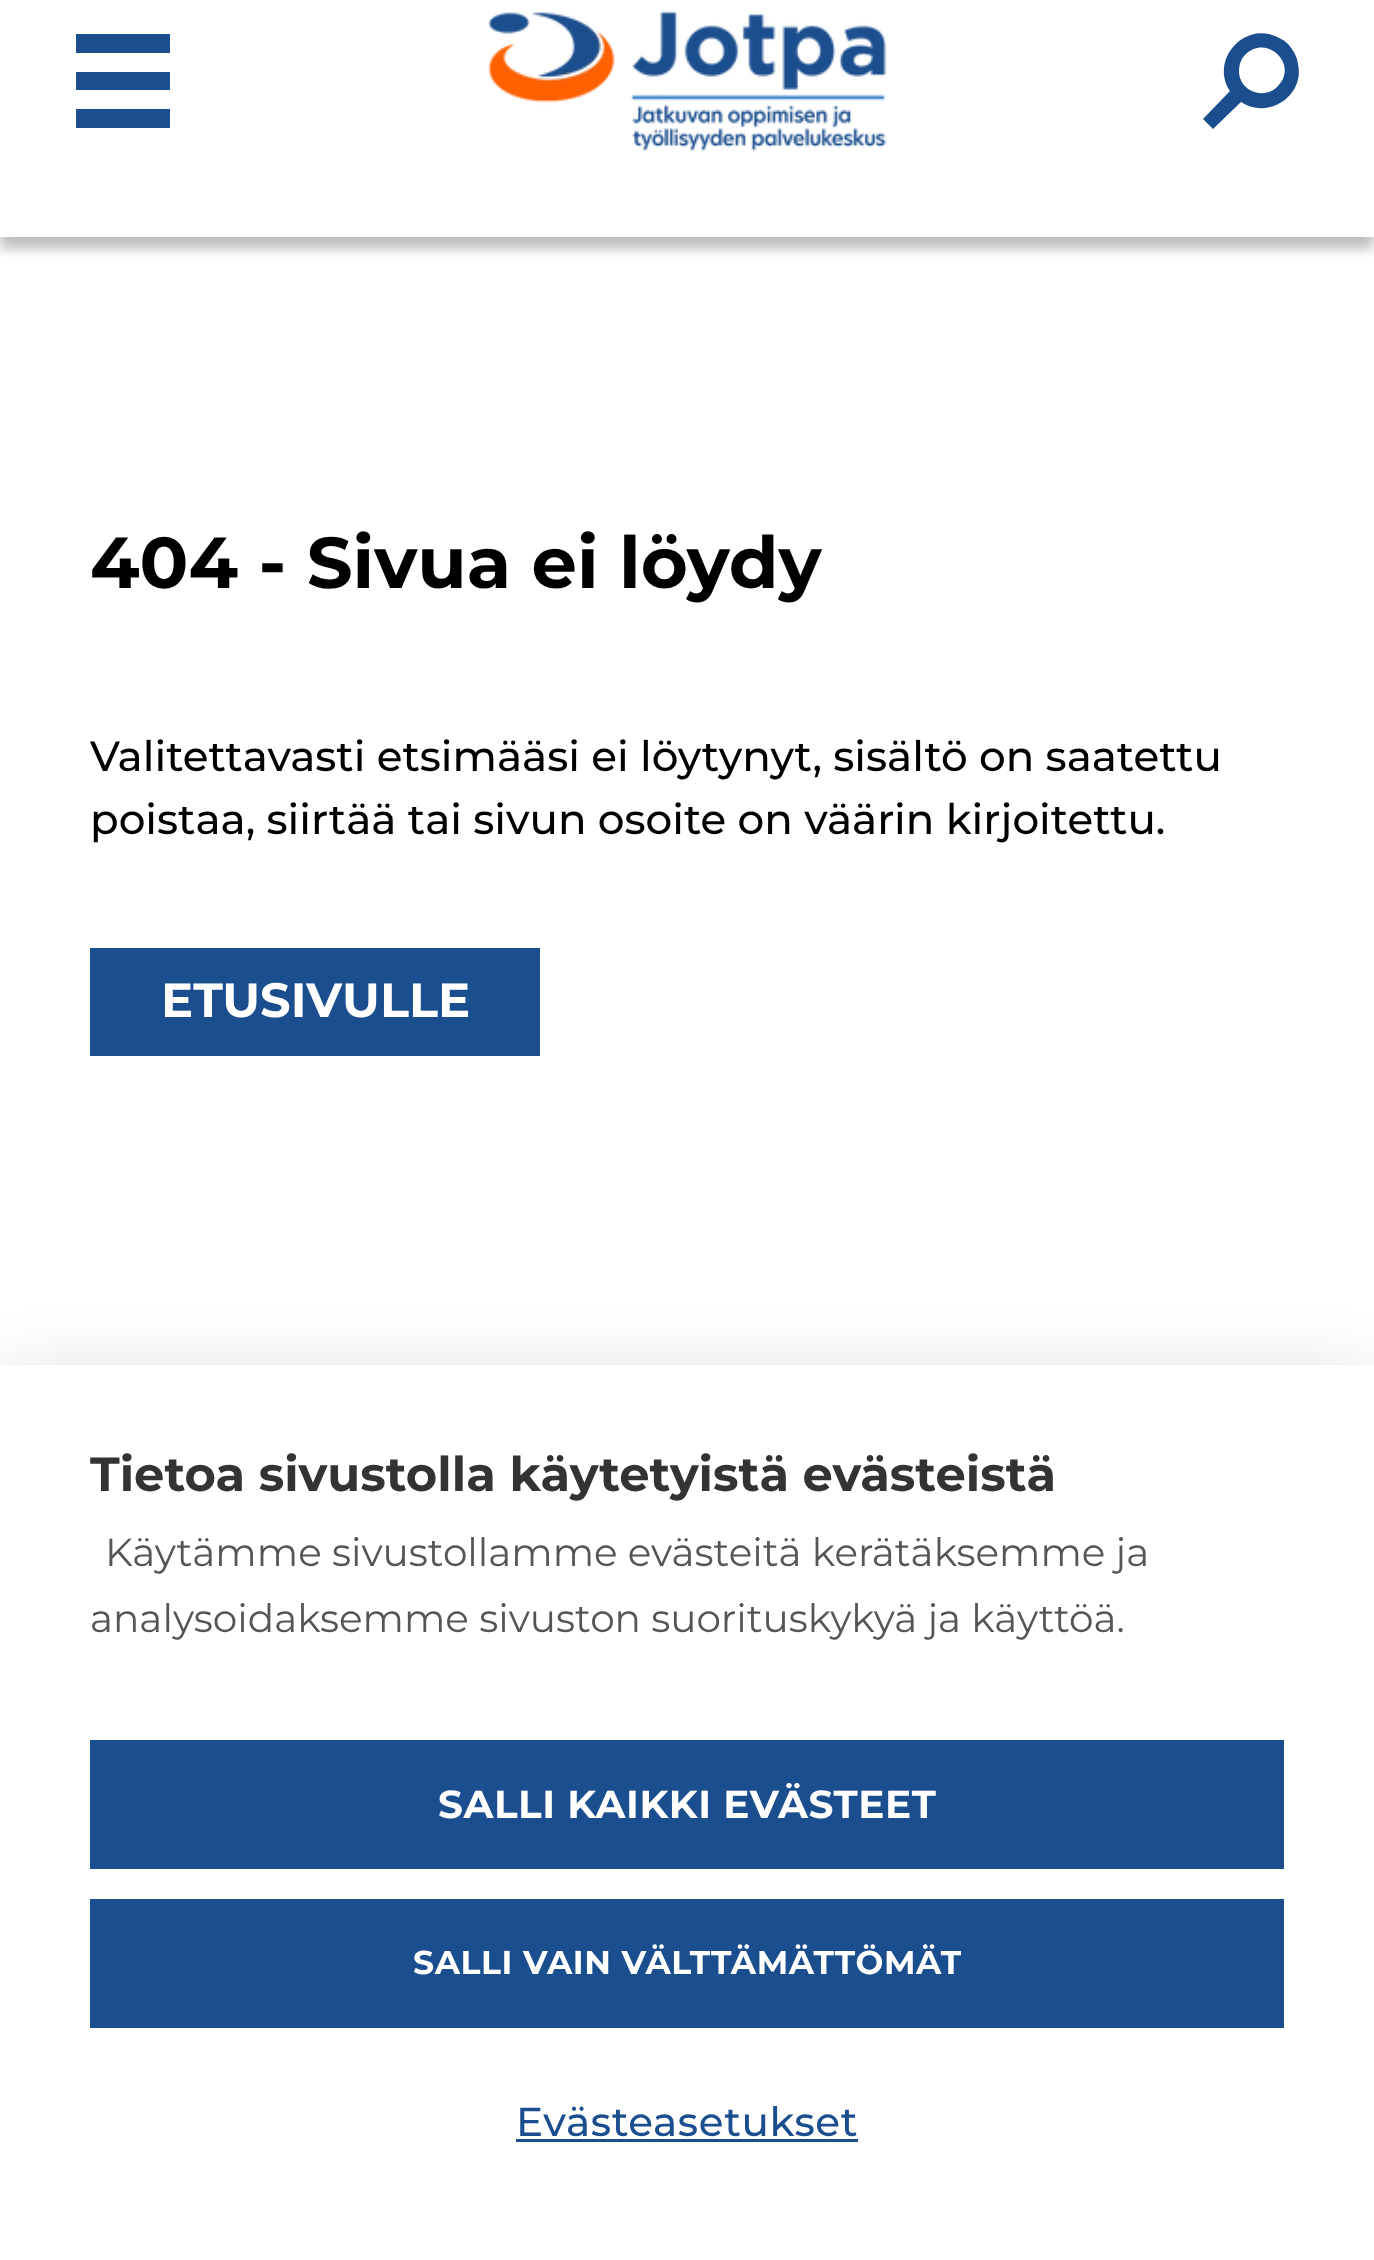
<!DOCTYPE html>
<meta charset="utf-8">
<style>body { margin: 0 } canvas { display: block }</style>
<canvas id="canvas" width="1374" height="2260"></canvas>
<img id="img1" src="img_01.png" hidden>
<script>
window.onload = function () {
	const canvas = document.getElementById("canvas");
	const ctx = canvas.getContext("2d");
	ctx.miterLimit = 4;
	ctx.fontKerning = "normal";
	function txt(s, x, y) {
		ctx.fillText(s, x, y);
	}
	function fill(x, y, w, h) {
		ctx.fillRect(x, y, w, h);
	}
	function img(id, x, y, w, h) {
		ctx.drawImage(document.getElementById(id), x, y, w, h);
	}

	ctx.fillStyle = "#FFFFFF";
	fill(0, 0, 1374, 2260);
	ctx.save();
	ctx.beginPath();
	ctx.rect(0, 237, 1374, 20);
	ctx.clip();
	ctx.fillStyle = "rgba(0, 0, 0, 0.25)";
	ctx.filter = "blur(6px)";
	ctx.beginPath();
	ctx.rect(0, -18, 1374, 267);
	ctx.fill();
	ctx.filter = "none";
	ctx.restore();
	ctx.fillStyle = "#1B4E8E";
	ctx.beginPath();
	ctx.moveTo(170, 90);
	ctx.lineTo(76, 90);
	ctx.lineTo(76, 72);
	ctx.lineTo(170, 72);
	ctx.closePath();
	ctx.moveTo(170, 34);
	ctx.lineTo(76, 34);
	ctx.lineTo(76, 53);
	ctx.lineTo(170, 53);
	ctx.closePath();
	ctx.moveTo(170, 109);
	ctx.lineTo(76, 109);
	ctx.lineTo(76, 128);
	ctx.lineTo(170, 128);
	ctx.closePath();
	ctx.fill();
	img("img1", 488, 10, 399, 142);
	ctx.beginPath();
	ctx.moveTo(1288, 44);
	ctx.bezierCurveTo(1283, 39, 1276, 36, 1269, 34);
	ctx.bezierCurveTo(1237, 28, 1212, 64, 1230, 91);
	ctx.lineTo(1203, 119);
	ctx.lineTo(1213, 129);
	ctx.lineTo(1241, 102);
	ctx.bezierCurveTo(1268, 120, 1305, 96, 1298, 64);
	ctx.bezierCurveTo(1297, 56, 1293, 50, 1288, 44);
	ctx.closePath();
	ctx.moveTo(1278, 86);
	ctx.bezierCurveTo(1264, 101, 1239, 91, 1239, 71);
	ctx.bezierCurveTo(1239, 65, 1241, 59, 1245, 55);
	ctx.bezierCurveTo(1267, 33, 1299, 65, 1278, 86);
	ctx.closePath();
	ctx.fill();
	fill(90, 948, 450, 108);
	ctx.fillStyle = "rgba(0, 0, 0, 0.1)";
	ctx.filter = "blur(30px)";
	ctx.beginPath();
	ctx.rect(0, 1365, 1374, 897);
	ctx.fill();
	ctx.filter = "none";
	ctx.fillStyle = "#FFFFFF";
	fill(0, 1365, 1374, 895);
	ctx.fillStyle = "#1B4E8E";
	fill(90, 1740, 1194, 129);
	fill(90, 1899, 1194, 129);
	fill(516, 2139, 342, 3);
	ctx.font = "bold 72px Montserrat";
	ctx.fillStyle = "#000000";
	txt("404 - Sivua ei löydy", 90, 588);
	ctx.font = "500 42px Montserrat";
	txt("Valitettavasti etsimääsi ei löytynyt, sisältö on saatettu", 90, 771);
	txt("poistaa, siirtää tai sivun osoite on väärin kirjoitettu.", 90, 834);
	ctx.font = "bold 48px Montserrat";
	ctx.fillStyle = "#FFFFFF";
	txt("ETUSIVULLE", 161, 1017);
	ctx.fillStyle = "#333333";
	txt("Tietoa sivustolla käytetyistä evästeistä", 90, 1491);
	ctx.font = "39px Montserrat";
	ctx.fillStyle = "#555555";
	txt("Käytämme sivustollamme evästeitä kerätäksemme ja", 105, 1566);
	txt("analysoidaksemme sivuston suorituskykyä ja käyttöä.", 90, 1632);
	ctx.letterSpacing = "0.6px";
	ctx.font = "bold 39px Montserrat";
	ctx.fillStyle = "#FFFFFF";
	txt("SALLI KAIKKI EVÄSTEET", 438, 1818);
	ctx.font = "bold 33px Montserrat";
	txt("SALLI VAIN VÄLTTÄMÄTTÖMÄT", 413, 1974);
	ctx.font = "500 40.5px Montserrat";
	ctx.fillStyle = "#1B4E8E";
	txt("Evästeasetukset", 516, 2136);
};
</script>
